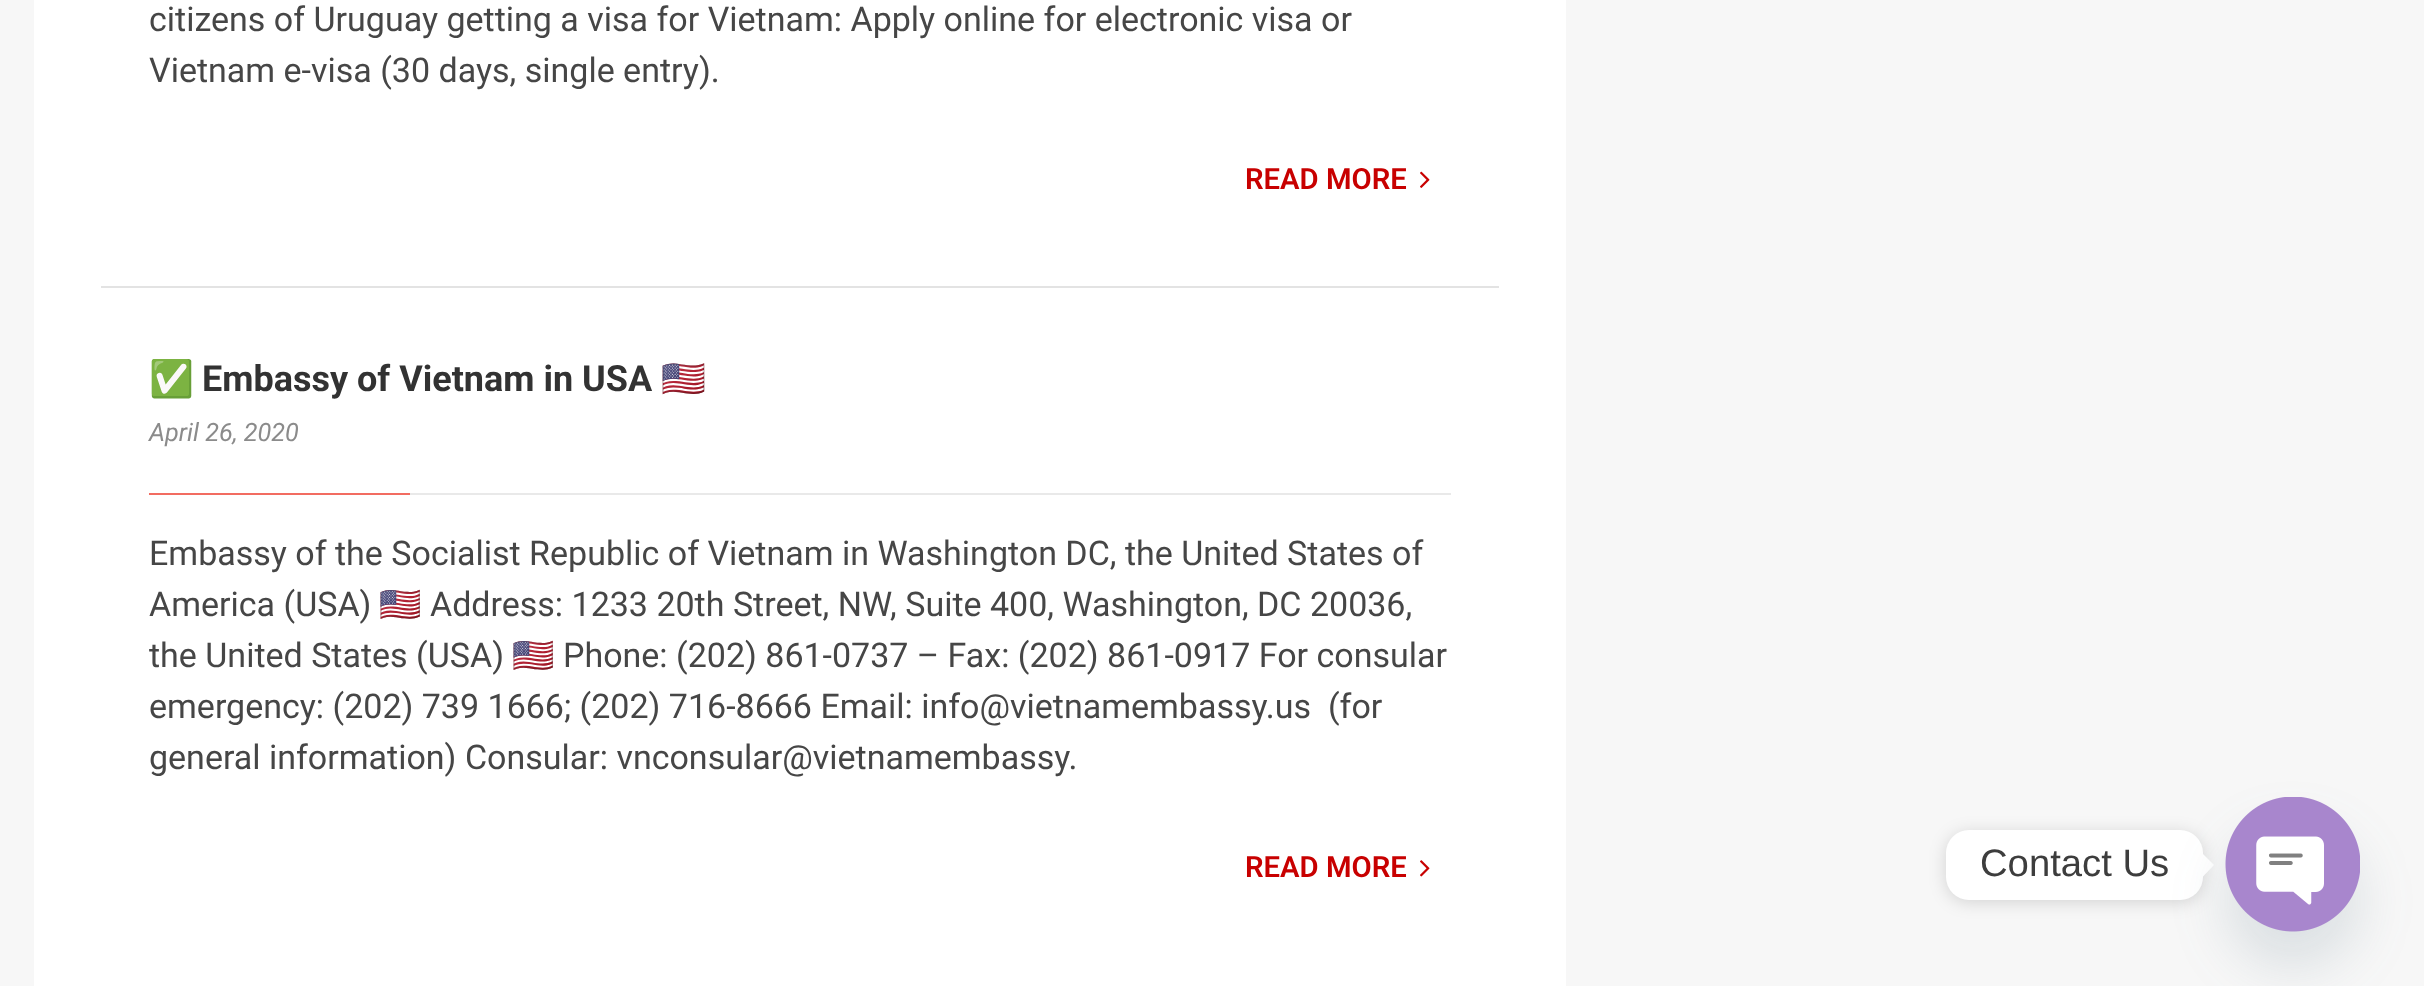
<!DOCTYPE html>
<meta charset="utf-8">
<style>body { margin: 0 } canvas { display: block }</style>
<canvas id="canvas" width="2424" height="986"></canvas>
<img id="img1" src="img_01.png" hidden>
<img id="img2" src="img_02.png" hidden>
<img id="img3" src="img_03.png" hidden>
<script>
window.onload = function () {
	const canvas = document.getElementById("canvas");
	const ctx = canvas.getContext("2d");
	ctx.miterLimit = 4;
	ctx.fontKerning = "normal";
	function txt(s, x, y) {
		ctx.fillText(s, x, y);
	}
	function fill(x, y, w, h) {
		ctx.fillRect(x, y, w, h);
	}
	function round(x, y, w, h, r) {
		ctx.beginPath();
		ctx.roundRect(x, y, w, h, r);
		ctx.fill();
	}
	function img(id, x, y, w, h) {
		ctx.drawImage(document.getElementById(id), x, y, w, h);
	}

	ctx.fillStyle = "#F7F7F7";
	fill(0, 0, 2424, 986);
	ctx.fillStyle = "#FFFFFF";
	fill(34, 0, 1532, 986);
	ctx.fillStyle = "#E3E3E3";
	fill(101, 286, 1398, 2);
	img("img1", 1420, 171, 10, 17);
	ctx.fillStyle = "#E9E9E9";
	fill(410, 493, 1041, 2);
	ctx.fillStyle = "#F26C61";
	fill(149, 493, 261, 2);
	img("img2", 1420, 860, 10, 17);
	ctx.fillStyle = "rgba(0, 0, 0, 0.15)";
	ctx.filter = "blur(8.5px)";
	ctx.beginPath();
	ctx.roundRect(1946, 833, 257, 69, 23);
	ctx.fill();
	ctx.filter = "none";
	ctx.fillStyle = "#FFFFFF";
	round(1946, 830, 257, 70, 23);
	ctx.beginPath();
	ctx.moveTo(2203, 876.5);
	ctx.lineTo(2203, 854);
	ctx.lineTo(2214, 865);
	ctx.closePath();
	ctx.fill();
	ctx.fillStyle = "rgba(73, 104, 126, 0.16)";
	ctx.filter = "blur(27px)";
	ctx.beginPath();
	ctx.roundRect(2225, 833, 135, 135, 67.5);
	ctx.fill();
	ctx.filter = "none";
	img("img3", 2225, 797, 135, 135);
	ctx.font = "34px Roboto";
	ctx.fillStyle = "#464646";
	txt("citizens of Uruguay getting a visa for Vietnam: Apply online for electronic visa or", 149, 31);
	txt("Vietnam e-visa (30 days, single entry).", 149, 82);
	ctx.font = "600 29.25px Roboto";
	ctx.fillStyle = "#C80000";
	txt("READ MORE", 1245, 189);
	ctx.font = "bold 36px Noto Color Emoji";
	ctx.fillStyle = "#323232";
	txt("✅", 149, 391);
	ctx.font = "bold 36px Roboto";
	txt("Embassy of Vietnam in USA", 202, 391);
	ctx.font = "bold 36px Noto Color Emoji";
	txt("🇺🇸", 661, 391);
	ctx.font = "italic 25.25px Roboto";
	ctx.fillStyle = "#8B8B8B";
	txt("April 26, 2020", 149, 441);
	ctx.font = "34px Roboto";
	ctx.fillStyle = "#464646";
	txt("Embassy of the Socialist Republic of Vietnam in Washington DC, the United States of", 149, 565);
	txt("America (USA)", 149, 616);
	ctx.font = "34px Noto Color Emoji";
	txt("🇺🇸", 379, 616);
	ctx.font = "34px Roboto";
	txt("Address: 1233 20th Street, NW, Suite 400, Washington, DC 20036,", 430, 616);
	txt("the United States (USA)", 149, 667);
	ctx.font = "34px Noto Color Emoji";
	txt("🇺🇸", 512, 667);
	ctx.font = "34px Roboto";
	txt("Phone: (202) 861-0737 – Fax: (202) 861-0917 For consular", 563, 667);
	txt("emergency: (202) 739 1666; (202) 716-8666 Email: info@vietnamembassy.us  (for", 149, 718);
	txt("general information) Consular: vnconsular@vietnamembassy.", 149, 769);
	ctx.font = "600 29.25px Roboto";
	ctx.fillStyle = "#C80000";
	txt("READ MORE", 1245, 877);
	ctx.font = "38.25px Liberation Sans";
	ctx.fillStyle = "#3D3D3D";
	txt("Contact Us", 1980, 876);
};
</script>
